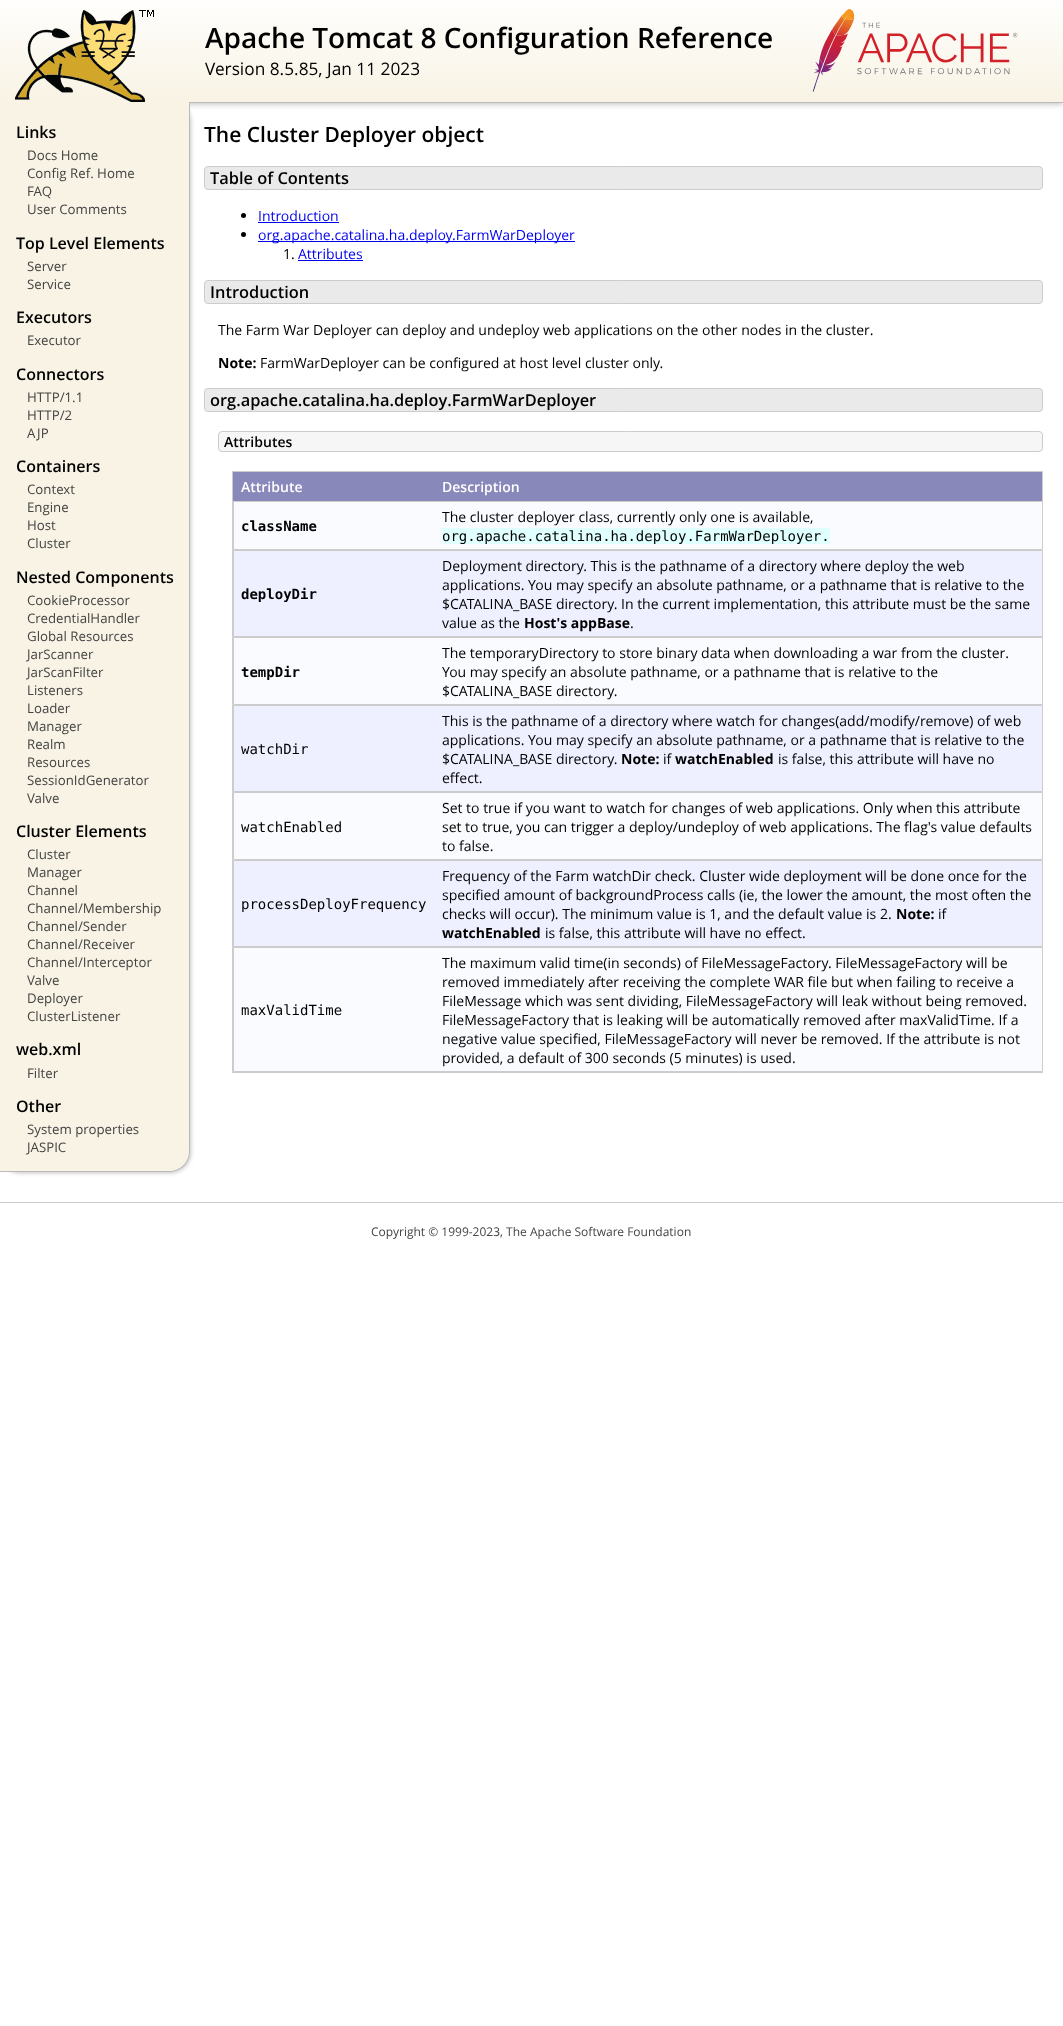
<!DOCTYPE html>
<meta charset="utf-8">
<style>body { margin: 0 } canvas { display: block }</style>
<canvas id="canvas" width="1063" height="2026"></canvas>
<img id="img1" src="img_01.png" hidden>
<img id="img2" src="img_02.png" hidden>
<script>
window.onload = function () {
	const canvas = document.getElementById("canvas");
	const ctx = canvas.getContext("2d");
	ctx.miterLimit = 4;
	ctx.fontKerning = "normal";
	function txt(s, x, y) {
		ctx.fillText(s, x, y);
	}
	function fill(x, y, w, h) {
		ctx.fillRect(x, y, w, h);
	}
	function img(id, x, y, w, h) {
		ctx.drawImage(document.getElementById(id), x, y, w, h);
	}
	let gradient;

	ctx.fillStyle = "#FFFFFF";
	fill(0, 0, 1063, 2026);
	ctx.fillStyle = "#AAAAAA";
	ctx.filter = "blur(3.5px)";
	ctx.beginPath();
	ctx.rect(0, 0, 1063, 103);
	ctx.fill();
	ctx.filter = "none";
	ctx.fillStyle = "#BBBBBB";
	fill(190, 102, 873, 1);
	ctx.fillStyle = "#AAAAAA";
	ctx.filter = "blur(2.5px)";
	ctx.beginPath();
	ctx.roundRect(0, 102, 190, 1070, 20);
	ctx.fill();
	ctx.filter = "none";
	gradient = ctx.createLinearGradient(532, -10, 532, 102);
	gradient.addColorStop(0, "#FFFFFF");
	gradient.addColorStop(1, "#F8F3E4");
	ctx.fillStyle = gradient;
	fill(0, 0, 1063, 102);
	img("img1", 15, 10, 139, 92);
	img("img2", 812, 9, 206, 83);
	ctx.fillStyle = "#F8F3E4";
	ctx.beginPath();
	ctx.roundRect(0, 102, 190, 1070, [0, 0, 20, 0]);
	ctx.fill();
	ctx.fillStyle = "#BBBBBB";
	ctx.beginPath();
	ctx.moveTo(0, 102);
	ctx.lineTo(190, 102);
	ctx.lineTo(190, 1152);
	ctx.bezierCurveTo(190, 1163, 181, 1172, 170, 1172);
	ctx.lineTo(0, 1172);
	ctx.closePath();
	ctx.moveTo(0, 102);
	ctx.lineTo(189, 102);
	ctx.lineTo(189, 1152);
	ctx.bezierCurveTo(189, 1162, 180, 1171, 170, 1171);
	ctx.lineTo(0, 1171);
	ctx.closePath();
	ctx.fill("evenodd");
	ctx.fillStyle = "#EAEAEA";
	ctx.beginPath();
	ctx.roundRect(204.5, 166.5, 838, 23, 3.5);
	ctx.fill();
	ctx.strokeStyle = "#CCCCCC";
	ctx.stroke();
	ctx.fillStyle = "#000000";
	ctx.beginPath();
	ctx.arc(243.5, 215.5, 2.5, 0, Math.PI * 2);
	ctx.fill();
	ctx.fillStyle = "#0000EE";
	fill(258, 222, 81, 1);
	ctx.fillStyle = "#000000";
	ctx.beginPath();
	ctx.arc(243.5, 234.5, 2.5, 0, Math.PI * 2);
	ctx.fill();
	ctx.fillStyle = "#0000EE";
	fill(258, 241, 317, 1);
	fill(298, 260, 65, 1);
	ctx.fillStyle = "#EAEAEA";
	ctx.beginPath();
	ctx.roundRect(204.5, 280.5, 838, 23, 3.5);
	ctx.fill();
	ctx.stroke();
	ctx.beginPath();
	ctx.roundRect(204.5, 388.5, 838, 23, 3.5);
	ctx.fill();
	ctx.stroke();
	ctx.fillStyle = "#F6F6F6";
	ctx.beginPath();
	ctx.roundRect(218.5, 431.5, 824, 20, 3.5);
	ctx.fill();
	ctx.stroke();
	ctx.fillStyle = "#CCCCCC";
	fill(232, 471, 811, 1);
	ctx.fillStyle = "#FAFBFF";
	ctx.beginPath();
	ctx.rect(233.5, 501.5, 809, 48);
	ctx.fill();
	ctx.stroke();
	ctx.fillStyle = "#CCCCCC";
	fill(1042, 471, 1, 31);
	fill(232, 947, 1, 1);
	fill(232, 1072, 811, 1);
	fill(232, 947, 1, 126);
	fill(232, 860, 1, 88);
	fill(232, 792, 1, 69);
	fill(232, 705, 1, 88);
	fill(232, 637, 1, 69);
	fill(232, 550, 1, 88);
	fill(232, 501, 1, 50);
	fill(232, 471, 1, 31);
	ctx.fillStyle = "#8888BB";
	fill(233, 472, 809, 29);
	ctx.fillStyle = "#E0FFFF";
	fill(442, 528, 388, 16);
	ctx.fillStyle = "#EEEFFF";
	ctx.beginPath();
	ctx.rect(233.5, 550.5, 809, 86);
	ctx.fill();
	ctx.stroke();
	ctx.fillStyle = "#FAFBFF";
	ctx.beginPath();
	ctx.rect(233.5, 637.5, 809, 67);
	ctx.fill();
	ctx.stroke();
	ctx.fillStyle = "#EEEFFF";
	ctx.beginPath();
	ctx.rect(233.5, 705.5, 809, 86);
	ctx.fill();
	ctx.stroke();
	ctx.fillStyle = "#FAFBFF";
	ctx.beginPath();
	ctx.rect(233.5, 792.5, 809, 67);
	ctx.fill();
	ctx.stroke();
	ctx.fillStyle = "#EEEFFF";
	ctx.beginPath();
	ctx.rect(233.5, 860.5, 809, 86);
	ctx.fill();
	ctx.stroke();
	ctx.fillStyle = "#FAFBFF";
	ctx.beginPath();
	ctx.rect(233.5, 947.5, 809, 124);
	ctx.fill();
	ctx.stroke();
	ctx.fillStyle = "#CCCCCC";
	fill(0, 1202, 1063, 1);
	ctx.font = "600 28px Open Sans";
	ctx.fillStyle = "#000000";
	txt("Apache Tomcat 8 Configuration Reference", 205, 48);
	ctx.font = "17.25px Open Sans";
	txt("Version 8.5.85, Jan 11 2023", 205, 75);
	ctx.font = "600 16px Open Sans";
	txt("Links", 16, 138);
	ctx.font = "13.25px Open Sans";
	ctx.fillStyle = "#444444";
	txt("Docs Home", 27, 160);
	txt("Config Ref. Home", 27, 178);
	txt("FAQ", 27, 196);
	txt("User Comments", 27, 214);
	ctx.font = "600 16px Open Sans";
	ctx.fillStyle = "#000000";
	txt("Top Level Elements", 16, 249);
	ctx.font = "13.25px Open Sans";
	ctx.fillStyle = "#444444";
	txt("Server", 27, 271);
	txt("Service", 27, 289);
	ctx.font = "600 16px Open Sans";
	ctx.fillStyle = "#000000";
	txt("Executors", 16, 323);
	ctx.font = "13.25px Open Sans";
	ctx.fillStyle = "#444444";
	txt("Executor", 27, 345);
	ctx.font = "600 16px Open Sans";
	ctx.fillStyle = "#000000";
	txt("Connectors", 16, 380);
	ctx.font = "13.25px Open Sans";
	ctx.fillStyle = "#444444";
	txt("HTTP/1.1", 27, 402);
	txt("HTTP/2", 27, 420);
	txt("AJP", 27, 438);
	ctx.font = "600 16px Open Sans";
	ctx.fillStyle = "#000000";
	txt("Containers", 16, 472);
	ctx.font = "13.25px Open Sans";
	ctx.fillStyle = "#444444";
	txt("Context", 27, 494);
	txt("Engine", 27, 512);
	txt("Host", 27, 530);
	txt("Cluster", 27, 548);
	ctx.font = "600 16px Open Sans";
	ctx.fillStyle = "#000000";
	txt("Nested Components", 16, 583);
	ctx.font = "13.25px Open Sans";
	ctx.fillStyle = "#444444";
	txt("CookieProcessor", 27, 605);
	txt("CredentialHandler", 27, 623);
	txt("Global Resources", 27, 641);
	txt("JarScanner", 27, 659);
	txt("JarScanFilter", 27, 677);
	txt("Listeners", 27, 695);
	txt("Loader", 27, 713);
	txt("Manager", 27, 731);
	txt("Realm", 27, 749);
	txt("Resources", 27, 767);
	txt("SessionIdGenerator", 27, 785);
	txt("Valve", 27, 803);
	ctx.font = "600 16px Open Sans";
	ctx.fillStyle = "#000000";
	txt("Cluster Elements", 16, 837);
	ctx.font = "13.25px Open Sans";
	ctx.fillStyle = "#444444";
	txt("Cluster", 27, 859);
	txt("Manager", 27, 877);
	txt("Channel", 27, 895);
	txt("Channel/Membership", 27, 913);
	txt("Channel/Sender", 27, 931);
	txt("Channel/Receiver", 27, 949);
	txt("Channel/Interceptor", 27, 967);
	txt("Valve", 27, 985);
	txt("Deployer", 27, 1003);
	txt("ClusterListener", 27, 1021);
	ctx.font = "600 16px Open Sans";
	ctx.fillStyle = "#000000";
	txt("web.xml", 16, 1055);
	ctx.font = "13.25px Open Sans";
	ctx.fillStyle = "#444444";
	txt("Filter", 27, 1078);
	ctx.font = "600 16px Open Sans";
	ctx.fillStyle = "#000000";
	txt("Other", 16, 1112);
	ctx.font = "13.25px Open Sans";
	ctx.fillStyle = "#444444";
	txt("System properties", 27, 1134);
	txt("JASPIC", 27, 1152);
	ctx.font = "600 21px Open Sans";
	ctx.fillStyle = "#000000";
	txt("The Cluster Deployer object", 204, 142);
	ctx.font = "600 16.4px Open Sans";
	txt("Table of Contents", 210, 184);
	ctx.font = "14px Open Sans";
	ctx.fillStyle = "#0000EE";
	txt("Introduction", 258, 221);
	txt("org.apache.catalina.ha.deploy.FarmWarDeployer", 258, 240);
	ctx.fillStyle = "#000000";
	txt("1.", 283, 259);
	ctx.fillStyle = "#0000EE";
	txt("Attributes", 298, 259);
	ctx.font = "600 16.4px Open Sans";
	ctx.fillStyle = "#000000";
	txt("Introduction", 210, 298);
	ctx.font = "14px Open Sans";
	txt("The Farm War Deployer can deploy and undeploy web applications on the other nodes in the cluster.", 218, 335);
	ctx.font = "bold 14px Open Sans";
	txt("Note:", 218, 368);
	ctx.font = "14px Open Sans";
	txt("FarmWarDeployer can be configured at host level cluster only.", 260, 368);
	ctx.font = "600 16.4px Open Sans";
	txt("org.apache.catalina.ha.deploy.FarmWarDeployer", 210, 406);
	ctx.font = "600 14px Open Sans";
	txt("Attributes", 224, 447);
	ctx.fillStyle = "#FFFFFF";
	txt("Attribute", 241, 492);
	txt("Description", 442, 492);
	ctx.font = "bold 14px DejaVu Sans Mono";
	ctx.fillStyle = "#000000";
	txt("className", 241, 531);
	ctx.font = "14px Open Sans";
	txt("The cluster deployer class, currently only one is available,", 442, 522);
	ctx.font = "14px DejaVu Sans Mono";
	txt("org.apache.catalina.ha.deploy.FarmWarDeployer.", 442, 541);
	ctx.font = "bold 14px DejaVu Sans Mono";
	txt("deployDir", 241, 599);
	ctx.font = "14px Open Sans";
	txt("Deployment directory. This is the pathname of a directory where deploy the web", 442, 571);
	txt("applications. You may specify an absolute pathname, or a pathname that is relative to the", 442, 590);
	txt("$CATALINA_BASE directory. In the current implementation, this attribute must be the same", 442, 609);
	txt("value as the", 442, 628);
	ctx.font = "bold 14px Open Sans";
	txt("Host's appBase", 524, 628);
	ctx.font = "14px Open Sans";
	txt(".", 630, 628);
	ctx.font = "bold 14px DejaVu Sans Mono";
	txt("tempDir", 241, 677);
	ctx.font = "14px Open Sans";
	txt("The temporaryDirectory to store binary data when downloading a war from the cluster.", 442, 658);
	txt("You may specify an absolute pathname, or a pathname that is relative to the", 442, 677);
	txt("$CATALINA_BASE directory.", 442, 696);
	ctx.font = "14px DejaVu Sans Mono";
	txt("watchDir", 241, 754);
	ctx.font = "14px Open Sans";
	txt("This is the pathname of a directory where watch for changes(add/modify/remove) of web", 442, 726);
	txt("applications. You may specify an absolute pathname, or a pathname that is relative to the", 442, 745);
	txt("$CATALINA_BASE directory.", 442, 764);
	ctx.font = "bold 14px Open Sans";
	txt("Note:", 621, 764);
	ctx.font = "14px Open Sans";
	txt("if", 663, 764);
	ctx.font = "bold 14px Open Sans";
	txt("watchEnabled", 675, 764);
	ctx.font = "14px Open Sans";
	txt("is false, this attribute will have no", 778, 764);
	txt("effect.", 442, 783);
	ctx.font = "14px DejaVu Sans Mono";
	txt("watchEnabled", 241, 832);
	ctx.font = "14px Open Sans";
	txt("Set to true if you want to watch for changes of web applications. Only when this attribute", 442, 813);
	txt("set to true, you can trigger a deploy/undeploy of web applications. The flag's value defaults", 442, 832);
	txt("to false.", 442, 851);
	ctx.font = "14px DejaVu Sans Mono";
	txt("processDeployFrequency", 241, 909);
	ctx.font = "14px Open Sans";
	txt("Frequency of the Farm watchDir check. Cluster wide deployment will be done once for the", 442, 881);
	txt("specified amount of backgroundProcess calls (ie, the lower the amount, the most often the", 442, 900);
	txt("checks will occur). The minimum value is 1, and the default value is 2.", 442, 919);
	ctx.font = "bold 14px Open Sans";
	txt("Note:", 896, 919);
	ctx.font = "14px Open Sans";
	txt("if", 938, 919);
	ctx.font = "bold 14px Open Sans";
	txt("watchEnabled", 442, 938);
	ctx.font = "14px Open Sans";
	txt("is false, this attribute will have no effect.", 545, 938);
	ctx.font = "14px DejaVu Sans Mono";
	txt("maxValidTime", 241, 1015);
	ctx.font = "14px Open Sans";
	txt("The maximum valid time(in seconds) of FileMessageFactory. FileMessageFactory will be", 442, 968);
	txt("removed immediately after receiving the complete WAR file but when failing to receive a", 442, 987);
	txt("FileMessage which was sent dividing, FileMessageFactory will leak without being removed.", 442, 1006);
	txt("FileMessageFactory that is leaking will be automatically removed after maxValidTime. If a", 442, 1025);
	txt("negative value specified, FileMessageFactory will never be removed. If the attribute is not", 442, 1044);
	txt("provided, a default of 300 seconds (5 minutes) is used.", 442, 1063);
	ctx.font = "12px Open Sans";
	ctx.fillStyle = "#444444";
	txt("Copyright © 1999-2023, The Apache Software Foundation", 371, 1236);
};
</script>
